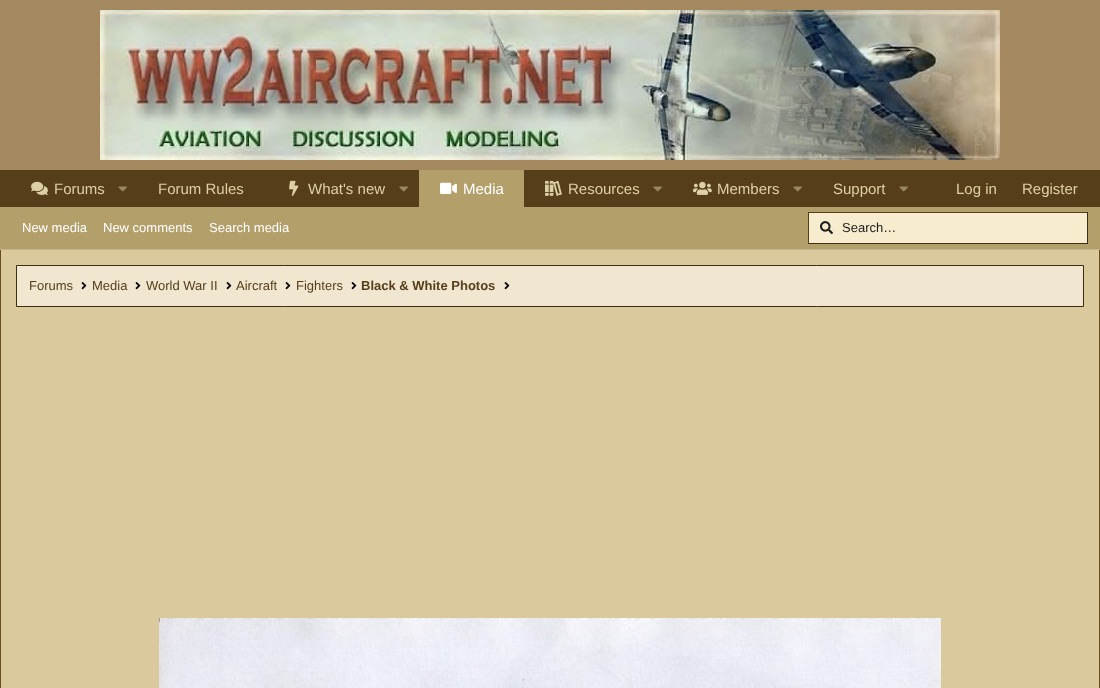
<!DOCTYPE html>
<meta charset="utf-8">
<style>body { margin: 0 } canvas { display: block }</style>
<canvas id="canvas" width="1100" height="688"></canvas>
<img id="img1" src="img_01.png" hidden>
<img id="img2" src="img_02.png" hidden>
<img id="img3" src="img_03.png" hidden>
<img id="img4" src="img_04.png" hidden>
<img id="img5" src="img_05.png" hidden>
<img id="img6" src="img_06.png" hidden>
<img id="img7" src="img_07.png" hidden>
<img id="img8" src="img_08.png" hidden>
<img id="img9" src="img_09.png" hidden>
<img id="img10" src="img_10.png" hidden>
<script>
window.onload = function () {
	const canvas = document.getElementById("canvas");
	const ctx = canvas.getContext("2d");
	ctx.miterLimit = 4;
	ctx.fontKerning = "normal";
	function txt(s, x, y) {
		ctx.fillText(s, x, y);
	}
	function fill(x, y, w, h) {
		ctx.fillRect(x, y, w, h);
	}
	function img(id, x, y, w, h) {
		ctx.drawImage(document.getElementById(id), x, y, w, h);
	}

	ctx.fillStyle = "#A48960";
	fill(0, 0, 1100, 688);
	img("img1", 100, 10, 900, 150);
	ctx.fillStyle = "#553E19";
	fill(0, 170, 1100, 37);
	img("img2", 31, 181, 17, 14);
	img("img3", 118, 186, 9, 6);
	img("img4", 289, 180, 10, 16);
	img("img3", 399, 186, 9, 6);
	ctx.fillStyle = "#B39F6A";
	fill(419, 170, 105, 37);
	img("img5", 440, 182, 17, 12);
	img("img6", 545, 180, 17, 16);
	img("img3", 653, 186, 9, 6);
	img("img7", 693, 181, 19, 14);
	img("img3", 793, 186, 9, 6);
	img("img3", 899, 186, 9, 6);
	fill(0, 207, 1100, 42);
	ctx.fillStyle = "#C4B58C";
	fill(0, 249, 1100, 1);
	ctx.fillStyle = "#F7ECCD";
	fill(809, 213, 278, 30);
	img("img8", 820, 221, 13, 14);
	ctx.fillStyle = "#553E19";
	fill(808, 212, 280, 1);
	ctx.fillStyle = "#3D2D12";
	fill(1087, 212, 1, 32);
	fill(808, 243, 280, 1);
	ctx.fillStyle = "#553E19";
	fill(808, 212, 1, 32);
	ctx.fillStyle = "#DAC99C";
	fill(1, 250, 1098, 438);
	ctx.fillStyle = "#694C1F";
	fill(1099, 250, 1, 438);
	fill(0, 250, 1, 438);
	ctx.fillStyle = "#F1E7D1";
	ctx.beginPath();
	ctx.rect(16.5, 265.5, 1067, 41);
	ctx.fill();
	ctx.strokeStyle = "#3D2D12";
	ctx.stroke();
	img("img9", 81, 282, 6, 8);
	img("img9", 135, 282, 6, 8);
	img("img9", 226, 282, 6, 8);
	img("img9", 285, 282, 6, 8);
	img("img9", 351, 282, 6, 8);
	img("img9", 504, 282, 6, 8);
	img("img10", 159, 618, 782, 70);
	ctx.font = "15px Liberation Sans";
	ctx.fillStyle = "#DED0A6";
	txt("Forums", 54, 194);
	txt("Forum Rules", 158, 194);
	txt("What's new", 308, 194);
	ctx.fillStyle = "#FFFFFF";
	txt("Media", 463, 194);
	ctx.fillStyle = "#DED0A6";
	txt("Resources", 568, 194);
	txt("Members", 717, 194);
	txt("Support", 833, 194);
	txt("Log in", 956, 194);
	txt("Register", 1022, 194);
	ctx.font = "13px Liberation Sans";
	ctx.fillStyle = "#FFFFFF";
	txt("New media", 22, 232);
	txt("New comments", 103, 232);
	txt("Search media", 209, 232);
	ctx.fillStyle = "#1D1D1D";
	txt("Search…", 842, 232);
	ctx.fillStyle = "#553E19";
	txt("Forums", 29, 290);
	txt("Media", 92, 290);
	txt("World War II", 146, 290);
	txt("Aircraft", 236, 290);
	txt("Fighters", 296, 290);
	ctx.font = "bold 13px Liberation Sans";
	txt("Black & White Photos", 361, 290);
};
</script>
